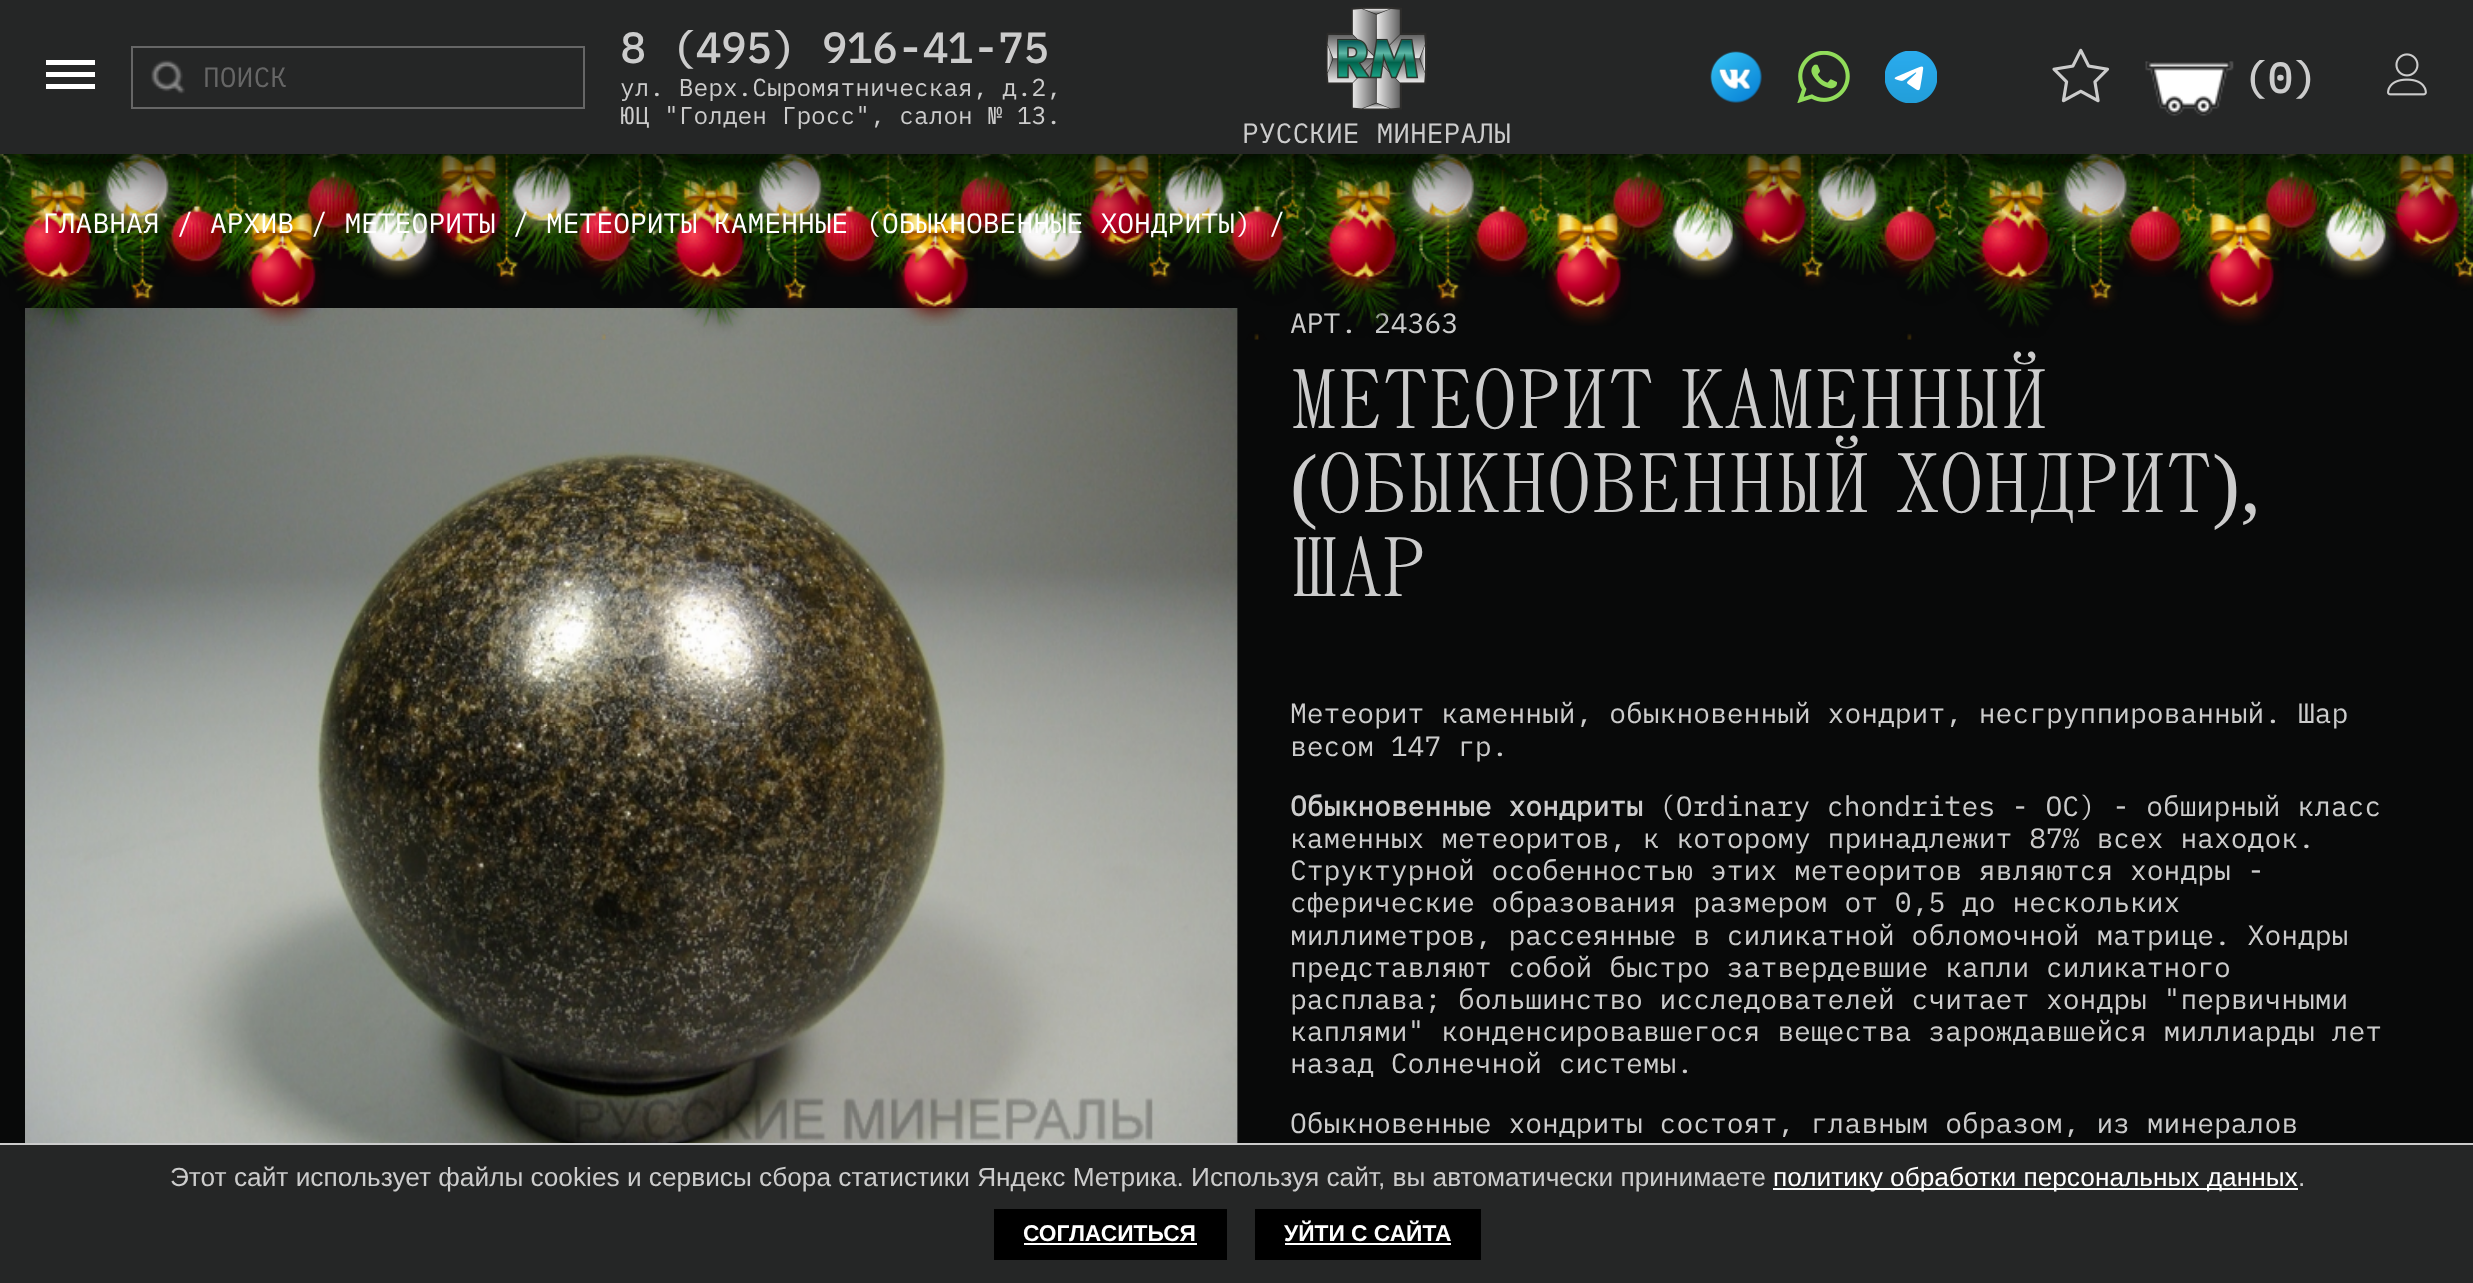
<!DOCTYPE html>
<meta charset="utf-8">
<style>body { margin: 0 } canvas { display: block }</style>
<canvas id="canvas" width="2473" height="1283"></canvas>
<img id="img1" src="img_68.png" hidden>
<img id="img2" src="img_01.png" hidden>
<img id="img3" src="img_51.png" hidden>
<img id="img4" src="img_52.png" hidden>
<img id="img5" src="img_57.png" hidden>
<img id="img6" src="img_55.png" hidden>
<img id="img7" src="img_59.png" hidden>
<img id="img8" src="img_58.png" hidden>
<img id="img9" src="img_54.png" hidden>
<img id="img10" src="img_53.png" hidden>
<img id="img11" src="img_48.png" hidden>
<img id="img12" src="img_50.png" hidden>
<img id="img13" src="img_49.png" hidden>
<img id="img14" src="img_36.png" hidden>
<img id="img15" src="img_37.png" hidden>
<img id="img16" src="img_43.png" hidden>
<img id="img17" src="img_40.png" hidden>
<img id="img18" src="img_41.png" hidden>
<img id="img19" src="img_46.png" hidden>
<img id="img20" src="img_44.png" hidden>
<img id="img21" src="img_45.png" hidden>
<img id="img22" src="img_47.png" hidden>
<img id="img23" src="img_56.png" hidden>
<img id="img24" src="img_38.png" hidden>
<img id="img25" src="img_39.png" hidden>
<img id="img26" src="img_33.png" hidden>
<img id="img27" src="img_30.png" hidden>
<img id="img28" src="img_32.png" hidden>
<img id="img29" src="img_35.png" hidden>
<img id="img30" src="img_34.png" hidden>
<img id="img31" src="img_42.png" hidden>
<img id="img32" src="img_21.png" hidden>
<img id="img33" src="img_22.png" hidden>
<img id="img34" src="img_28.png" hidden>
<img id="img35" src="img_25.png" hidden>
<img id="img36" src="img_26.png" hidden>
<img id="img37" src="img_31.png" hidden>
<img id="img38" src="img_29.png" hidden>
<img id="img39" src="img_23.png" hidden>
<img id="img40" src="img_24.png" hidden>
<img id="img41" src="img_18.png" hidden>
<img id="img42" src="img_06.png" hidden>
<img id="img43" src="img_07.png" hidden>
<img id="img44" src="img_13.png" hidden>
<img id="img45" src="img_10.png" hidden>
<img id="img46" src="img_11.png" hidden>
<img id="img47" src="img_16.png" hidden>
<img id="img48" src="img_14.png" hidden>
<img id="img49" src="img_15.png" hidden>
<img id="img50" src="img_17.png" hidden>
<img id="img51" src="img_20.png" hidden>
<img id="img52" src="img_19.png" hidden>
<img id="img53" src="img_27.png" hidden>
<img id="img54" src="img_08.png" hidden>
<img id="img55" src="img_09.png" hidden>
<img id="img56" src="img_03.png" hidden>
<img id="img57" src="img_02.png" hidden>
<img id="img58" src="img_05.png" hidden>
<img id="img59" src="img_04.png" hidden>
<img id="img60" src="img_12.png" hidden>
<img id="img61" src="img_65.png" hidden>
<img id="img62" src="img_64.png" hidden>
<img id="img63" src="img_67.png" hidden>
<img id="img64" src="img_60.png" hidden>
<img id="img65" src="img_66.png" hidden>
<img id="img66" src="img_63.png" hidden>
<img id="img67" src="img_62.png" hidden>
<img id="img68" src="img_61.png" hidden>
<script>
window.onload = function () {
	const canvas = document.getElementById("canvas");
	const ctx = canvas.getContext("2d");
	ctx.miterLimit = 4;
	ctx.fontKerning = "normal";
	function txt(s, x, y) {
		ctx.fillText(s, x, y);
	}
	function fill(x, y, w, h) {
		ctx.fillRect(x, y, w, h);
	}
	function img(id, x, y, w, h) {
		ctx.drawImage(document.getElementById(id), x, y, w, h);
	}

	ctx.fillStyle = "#080909";
	fill(0, 0, 2473, 1283);
	img("img1", 25, 308, 1213, 835);
	ctx.fillStyle = "#252626";
	fill(0, 1145, 2473, 138);
	ctx.fillStyle = "#CCCCCC";
	fill(0, 1143, 2473, 2);
	ctx.fillStyle = "#FFFFFF";
	fill(1773, 1188, 525, 2);
	ctx.fillStyle = "#000000";
	fill(994, 1209, 233, 51);
	ctx.fillStyle = "#FFFFFF";
	fill(1024, 1243, 173, 2);
	ctx.fillStyle = "#000000";
	fill(1255, 1209, 226, 51);
	ctx.fillStyle = "#FFFFFF";
	fill(1285, 1243, 166, 2);
	ctx.font = "28px IBM Plex Mono";
	ctx.fillStyle = "#CCCCCC";
	txt("АРТ. 24363", 1290, 333);
	img("img2", 0, 154, 2473, 186);
	img("img3", 2198, 154, 86, 172);
	img("img4", 2255, 154, 71, 90);
	img("img5", 2316, 164, 80, 116);
	img("img6", 2384, 154, 85, 109);
	img("img7", 2461, 173, 12, 55);
	img("img8", 2464, 154, 9, 27);
	img("img9", 2317, 154, 88, 88);
	img("img10", 2268, 154, 49, 54);
	img("img11", 1970, 154, 88, 143);
	img("img12", 2053, 154, 85, 84);
	img("img13", 2002, 154, 107, 47);
	img("img14", 1545, 154, 86, 172);
	img("img15", 1602, 154, 71, 90);
	img("img16", 1663, 164, 80, 116);
	img("img17", 1732, 154, 84, 109);
	img("img18", 1808, 154, 80, 86);
	img("img19", 1874, 171, 71, 107);
	img("img20", 1811, 154, 137, 49);
	img("img21", 1947, 154, 12, 121);
	img("img22", 1958, 154, 44, 124);
	img("img23", 2120, 169, 69, 108);
	img("img24", 1615, 154, 50, 54);
	img("img25", 1664, 154, 88, 88);
	img("img26", 1318, 154, 87, 143);
	img("img27", 1295, 154, 11, 121);
	img("img28", 1305, 154, 45, 124);
	img("img29", 1400, 154, 85, 84);
	img("img30", 1349, 154, 107, 47);
	img("img31", 1467, 169, 70, 108);
	img("img32", 892, 154, 86, 172);
	img("img33", 950, 154, 70, 90);
	img("img34", 1010, 164, 81, 116);
	img("img35", 1080, 154, 83, 109);
	img("img36", 1155, 154, 81, 86);
	img("img37", 1222, 171, 70, 107);
	img("img38", 1158, 154, 137, 49);
	img("img39", 962, 154, 50, 54);
	img("img40", 1011, 154, 88, 88);
	img("img41", 665, 154, 87, 143);
	img("img42", 240, 154, 85, 172);
	img("img43", 297, 154, 70, 90);
	img("img44", 357, 164, 81, 116);
	img("img45", 427, 154, 83, 109);
	img("img46", 503, 154, 80, 86);
	img("img47", 569, 171, 70, 107);
	img("img48", 506, 154, 137, 49);
	img("img49", 642, 154, 11, 121);
	img("img50", 652, 154, 45, 124);
	img("img51", 747, 154, 86, 84);
	img("img52", 696, 154, 107, 47);
	img("img53", 814, 169, 71, 108);
	img("img54", 309, 154, 50, 54);
	img("img55", 358, 154, 89, 88);
	img("img56", 12, 154, 87, 143);
	img("img57", 0, 154, 44, 124);
	img("img58", 95, 154, 85, 84);
	img("img59", 43, 154, 107, 47);
	img("img60", 161, 170, 70, 107);
	ctx.fillStyle = "rgba(0, 0, 0, 0.75)";
	ctx.filter = "blur(26px)";
	ctx.beginPath();
	ctx.rect(0, -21, 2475, 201);
	ctx.fill();
	ctx.filter = "none";
	ctx.fillStyle = "#252626";
	fill(0, 0, 2473, 154);
	ctx.fillStyle = "#FFFFFF";
	fill(46, 84, 49, 5);
	fill(46, 72, 49, 5);
	fill(46, 60, 49, 5);
	img("img61", 2145, 61, 89, 55);
	ctx.font = "bold 42px IBM Plex Mono";
	ctx.fillStyle = "#CCCCCC";
	txt("(0)", 2242, 93);
	img("img62", 2052, 48, 58, 55);
	ctx.font = "28px IBM Plex Mono";
	txt("РУССКИЕ МИНЕРАЛЫ", 1242, 143);
	img("img63", 1326, 7, 101, 103);
	ctx.strokeStyle = "#666666";
	ctx.lineWidth = 2;
	ctx.strokeRect(132, 47, 452, 61);
	img("img64", 151, 60, 34, 34);
	ctx.fillStyle = "#666666";
	txt("ПОИСК", 203, 87);
	img("img65", 2387, 53, 40, 43);
	img("img66", 1885, 51, 52, 52);
	img("img67", 1797, 51, 53, 52);
	img("img68", 1710, 51, 52, 52);
	ctx.font = "24.5px IBM Plex Mono";
	ctx.fillStyle = "#CCCCCC";
	txt("ЮЦ \"Голден Гросс\", салон № 13.", 620, 124);
	txt("ул. Верх.Сыромятническая, д.2,", 620, 96);
	ctx.font = "bold 42px IBM Plex Mono";
	txt("8 (495) 916-41-75", 620, 63);
	ctx.font = "28px IBM Plex Mono";
	ctx.fillStyle = "#FFFFFF";
	txt("ГЛАВНАЯ / АРХИВ / МЕТЕОРИТЫ / МЕТЕОРИТЫ КАМЕННЫЕ (ОБЫКНОВЕННЫЕ ХОНДРИТЫ) /", 42, 233);
	ctx.font = "84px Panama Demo";
	ctx.fillStyle = "#CCCCCC";
	txt("МЕТЕОРИТ КАМЕННЫЙ", 1290, 428);
	ctx.font = "84px Liberation Serif";
	txt("(", 1290, 512);
	ctx.font = "84px Panama Demo";
	txt("ОБЫКНОВЕННЫЙ ХОНДРИТ", 1318, 512);
	ctx.font = "84px Liberation Serif";
	txt("),", 2212, 512);
	ctx.font = "84px Panama Demo";
	txt("ШАР", 1290, 596);
	ctx.font = "28px IBM Plex Mono";
	txt("Метеорит каменный, обыкновенный хондрит, несгруппированный. Шар", 1290, 723);
	txt("весом 147 гр.", 1290, 756);
	ctx.font = "bold 28px IBM Plex Mono";
	txt("Обыкновенные хондриты", 1290, 816);
	ctx.font = "28px IBM Plex Mono";
	txt("(Оrdinary chondrites - OC) - обширный класс", 1659, 816);
	txt("каменных метеоритов, к которому принадлежит 87% всех находок.", 1290, 848);
	txt("Структурной особенностью этих метеоритов являются хондры -", 1290, 880);
	txt("сферические образования размером от 0,5 до нескольких", 1290, 912);
	txt("миллиметров, рассеянные в силикатной обломочной матрице. Хондры", 1290, 945);
	txt("представляют собой быстро затвердевшие капли силикатного", 1290, 977);
	txt("расплава; большинство исследователей считает хондры \"первичными", 1290, 1009);
	txt("каплями\" конденсировавшегося вещества зарождавшейся миллиарды лет", 1290, 1041);
	txt("назад Солнечной системы.", 1290, 1073);
	txt("Обыкновенные хондриты состоят, главным образом, из минералов", 1290, 1133);
	ctx.font = "26.25px Liberation Sans";
	txt("Этот сайт использует файлы cookies и сервисы сбора статистики Яндекс Метрика. Используя сайт, вы автоматически принимаете", 170, 1186);
	ctx.fillStyle = "#FFFFFF";
	txt("политику обработки персональных данных", 1773, 1186);
	ctx.fillStyle = "#CCCCCC";
	txt(".", 2298, 1186);
	ctx.font = "bold 22.75px Liberation Sans";
	ctx.fillStyle = "#FFFFFF";
	txt("СОГЛАСИТЬСЯ", 1023, 1241);
	txt("УЙТИ С САЙТА", 1284, 1241);
};
</script>
